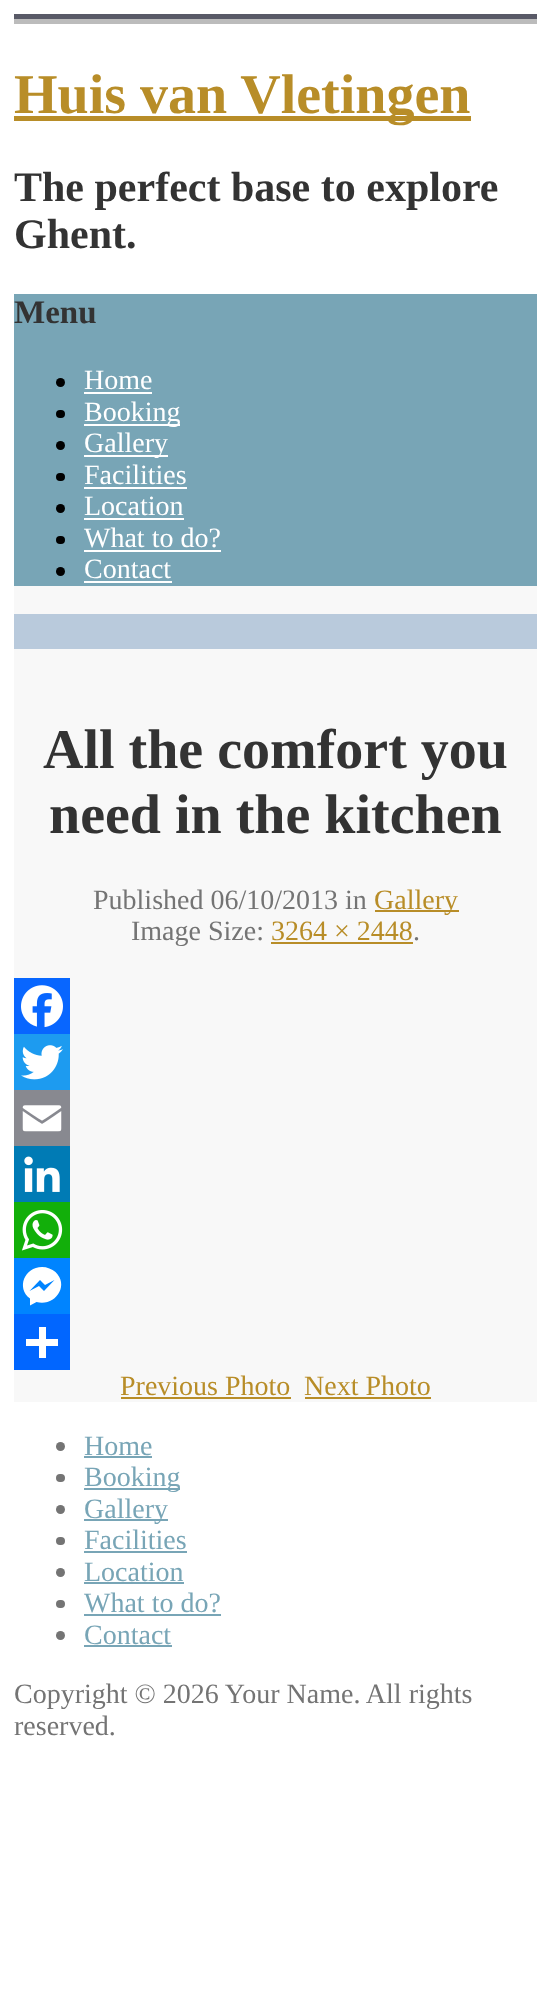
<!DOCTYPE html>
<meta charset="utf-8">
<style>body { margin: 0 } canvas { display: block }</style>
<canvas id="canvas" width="551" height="2014"></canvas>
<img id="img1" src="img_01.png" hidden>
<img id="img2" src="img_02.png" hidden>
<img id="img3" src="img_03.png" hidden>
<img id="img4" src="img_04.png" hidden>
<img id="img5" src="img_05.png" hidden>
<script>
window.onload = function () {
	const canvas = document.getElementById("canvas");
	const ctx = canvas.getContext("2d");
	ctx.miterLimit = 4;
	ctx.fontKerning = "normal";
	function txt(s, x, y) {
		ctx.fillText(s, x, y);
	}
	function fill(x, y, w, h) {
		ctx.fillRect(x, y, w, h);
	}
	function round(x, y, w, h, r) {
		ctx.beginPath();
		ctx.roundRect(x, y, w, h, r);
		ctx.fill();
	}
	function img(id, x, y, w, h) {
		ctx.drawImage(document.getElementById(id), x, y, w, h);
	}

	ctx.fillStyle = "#FFFFFF";
	fill(0, 0, 551, 2014);
	ctx.fillStyle = "#595A67";
	fill(14, 14, 523, 5);
	ctx.fillStyle = "#BCBCBC";
	fill(14, 19, 523, 5);
	ctx.fillStyle = "#B88D28";
	fill(14, 116, 457, 5);
	ctx.fillStyle = "#F8F8F8";
	fill(14, 586, 523, 816);
	ctx.fillStyle = "#78A5B6";
	fill(14, 294, 523, 292);
	ctx.fillStyle = "#000000";
	ctx.beginPath();
	ctx.arc(60.5, 382.5, 4.5, 0, Math.PI * 2);
	ctx.fill();
	ctx.fillStyle = "#FFFFFF";
	fill(84, 392, 68, 2);
	ctx.fillStyle = "#000000";
	round(56, 410, 9, 8, 4);
	ctx.fillStyle = "#FFFFFF";
	fill(84, 424, 96, 2);
	ctx.fillStyle = "#000000";
	ctx.beginPath();
	ctx.arc(60.5, 445.5, 4.5, 0, Math.PI * 2);
	ctx.fill();
	ctx.fillStyle = "#FFFFFF";
	fill(84, 455, 84, 2);
	ctx.fillStyle = "#000000";
	round(56, 473, 9, 8, 4);
	ctx.fillStyle = "#FFFFFF";
	fill(84, 487, 103, 2);
	ctx.fillStyle = "#000000";
	ctx.beginPath();
	ctx.arc(60.5, 508.5, 4.5, 0, Math.PI * 2);
	ctx.fill();
	ctx.fillStyle = "#FFFFFF";
	fill(84, 518, 100, 2);
	ctx.fillStyle = "#000000";
	round(56, 536, 9, 8, 4);
	ctx.fillStyle = "#FFFFFF";
	fill(84, 550, 137, 2);
	ctx.fillStyle = "#000000";
	ctx.beginPath();
	ctx.arc(60.5, 571.5, 4.5, 0, Math.PI * 2);
	ctx.fill();
	ctx.fillStyle = "#FFFFFF";
	fill(84, 581, 88, 2);
	ctx.fillStyle = "#B9CADC";
	fill(14, 614, 523, 35);
	ctx.fillStyle = "#B88D28";
	fill(375, 910, 84, 2);
	fill(271, 942, 142, 2);
	ctx.fillStyle = "#0866FF";
	fill(14, 978, 56, 56);
	img("img1", 21, 985, 42, 43);
	ctx.fillStyle = "#1D9BF0";
	fill(14, 1034, 56, 56);
	img("img2", 21, 1045, 42, 35);
	ctx.fillStyle = "#888990";
	fill(14, 1090, 56, 56);
	img("img3", 22, 1105, 40, 27);
	ctx.fillStyle = "#007BB5";
	fill(14, 1146, 56, 56);
	img("img4", 24, 1156, 36, 36);
	ctx.fillStyle = "#12AF0A";
	fill(14, 1202, 56, 56);
	img("img5", 21, 1210, 42, 41);
	ctx.fillStyle = "#0084FF";
	fill(14, 1258, 56, 56);
	ctx.fillStyle = "#FFFFFF";
	ctx.beginPath();
	ctx.moveTo(42, 1267);
	ctx.bezierCurveTo(24.5, 1267, 16, 1288, 30, 1298.5);
	ctx.lineTo(30, 1305.5);
	ctx.lineTo(36.5, 1302);
	ctx.bezierCurveTo(54.5, 1307, 70, 1286, 55.5, 1272);
	ctx.bezierCurveTo(52, 1269, 47, 1267, 42, 1267);
	ctx.moveTo(44, 1291);
	ctx.lineTo(39, 1286);
	ctx.lineTo(29.5, 1291);
	ctx.lineTo(40, 1280);
	ctx.lineTo(45, 1285);
	ctx.lineTo(54.5, 1280);
	ctx.closePath();
	ctx.fill();
	ctx.fillStyle = "#0166FF";
	fill(14, 1314, 56, 56);
	ctx.fillStyle = "#FFFFFF";
	fill(39, 1327, 7, 31);
	fill(26, 1339, 32, 7);
	ctx.fillStyle = "#B88D28";
	fill(121, 1397, 170, 2);
	fill(305, 1397, 126, 2);
	ctx.fillStyle = "#747474";
	ctx.beginPath();
	ctx.arc(60.5, 1446.5, 4.5, 0, Math.PI * 2);
	ctx.fill();
	ctx.fillStyle = "#78A5B6";
	fill(84, 1456, 68, 2);
	ctx.fillStyle = "#747474";
	round(56, 1474, 9, 8, 4);
	ctx.fillStyle = "#78A5B6";
	fill(84, 1488, 96, 2);
	ctx.fillStyle = "#747474";
	ctx.beginPath();
	ctx.arc(60.5, 1509.5, 4.5, 0, Math.PI * 2);
	ctx.fill();
	ctx.fillStyle = "#78A5B6";
	fill(84, 1519, 84, 2);
	ctx.fillStyle = "#747474";
	round(56, 1537, 9, 8, 4);
	ctx.fillStyle = "#78A5B6";
	fill(84, 1551, 103, 2);
	ctx.fillStyle = "#747474";
	ctx.beginPath();
	ctx.arc(60.5, 1572.5, 4.5, 0, Math.PI * 2);
	ctx.fill();
	ctx.fillStyle = "#78A5B6";
	fill(84, 1582, 100, 2);
	ctx.fillStyle = "#747474";
	round(56, 1600, 9, 8, 4);
	ctx.fillStyle = "#78A5B6";
	fill(84, 1614, 137, 2);
	ctx.fillStyle = "#747474";
	ctx.beginPath();
	ctx.arc(60.5, 1635.5, 4.5, 0, Math.PI * 2);
	ctx.fill();
	ctx.fillStyle = "#78A5B6";
	fill(84, 1645, 88, 2);
	ctx.font = "bold 56px Liberation Serif";
	ctx.fillStyle = "#B88D28";
	txt("Huis van Vletingen", 14, 113);
	ctx.font = "bold 42px Liberation Serif";
	ctx.fillStyle = "#333333";
	txt("The perfect base to explore", 14, 201);
	txt("Ghent.", 14, 248);
	ctx.font = "bold 33px Liberation Serif";
	txt("Menu", 14, 323);
	ctx.font = "28px Liberation Serif";
	ctx.fillStyle = "#FFFFFF";
	txt("Home", 84, 389);
	txt("Booking", 84, 421);
	txt("Gallery", 84, 452);
	txt("Facilities", 84, 484);
	txt("Location", 84, 515);
	txt("What to do?", 84, 547);
	txt("Contact", 84, 578);
	ctx.font = "bold 56px Liberation Serif";
	ctx.fillStyle = "#333333";
	txt("All the comfort you", 43, 768);
	txt("need in the kitchen", 49, 833);
	ctx.font = "28px Liberation Serif";
	ctx.fillStyle = "#747474";
	txt("Published 06/10/2013 in", 93, 909);
	ctx.fillStyle = "#B88D28";
	txt("Gallery", 374, 909);
	ctx.fillStyle = "#747474";
	txt("Image Size:", 131, 940);
	ctx.fillStyle = "#B88D28";
	txt("3264 × 2448", 271, 940);
	ctx.fillStyle = "#747474";
	txt(".", 413, 940);
	ctx.fillStyle = "#B88D28";
	txt("Previous Photo", 120, 1395);
	txt("Next Photo", 304, 1395);
	ctx.fillStyle = "#78A5B6";
	txt("Home", 84, 1455);
	txt("Booking", 84, 1486);
	txt("Gallery", 84, 1518);
	txt("Facilities", 84, 1549);
	txt("Location", 84, 1581);
	txt("What to do?", 84, 1612);
	txt("Contact", 84, 1644);
	ctx.fillStyle = "#747474";
	txt("Copyright © 2026 Your Name. All rights", 14, 1703);
	txt("reserved.", 14, 1735);
};
</script>
